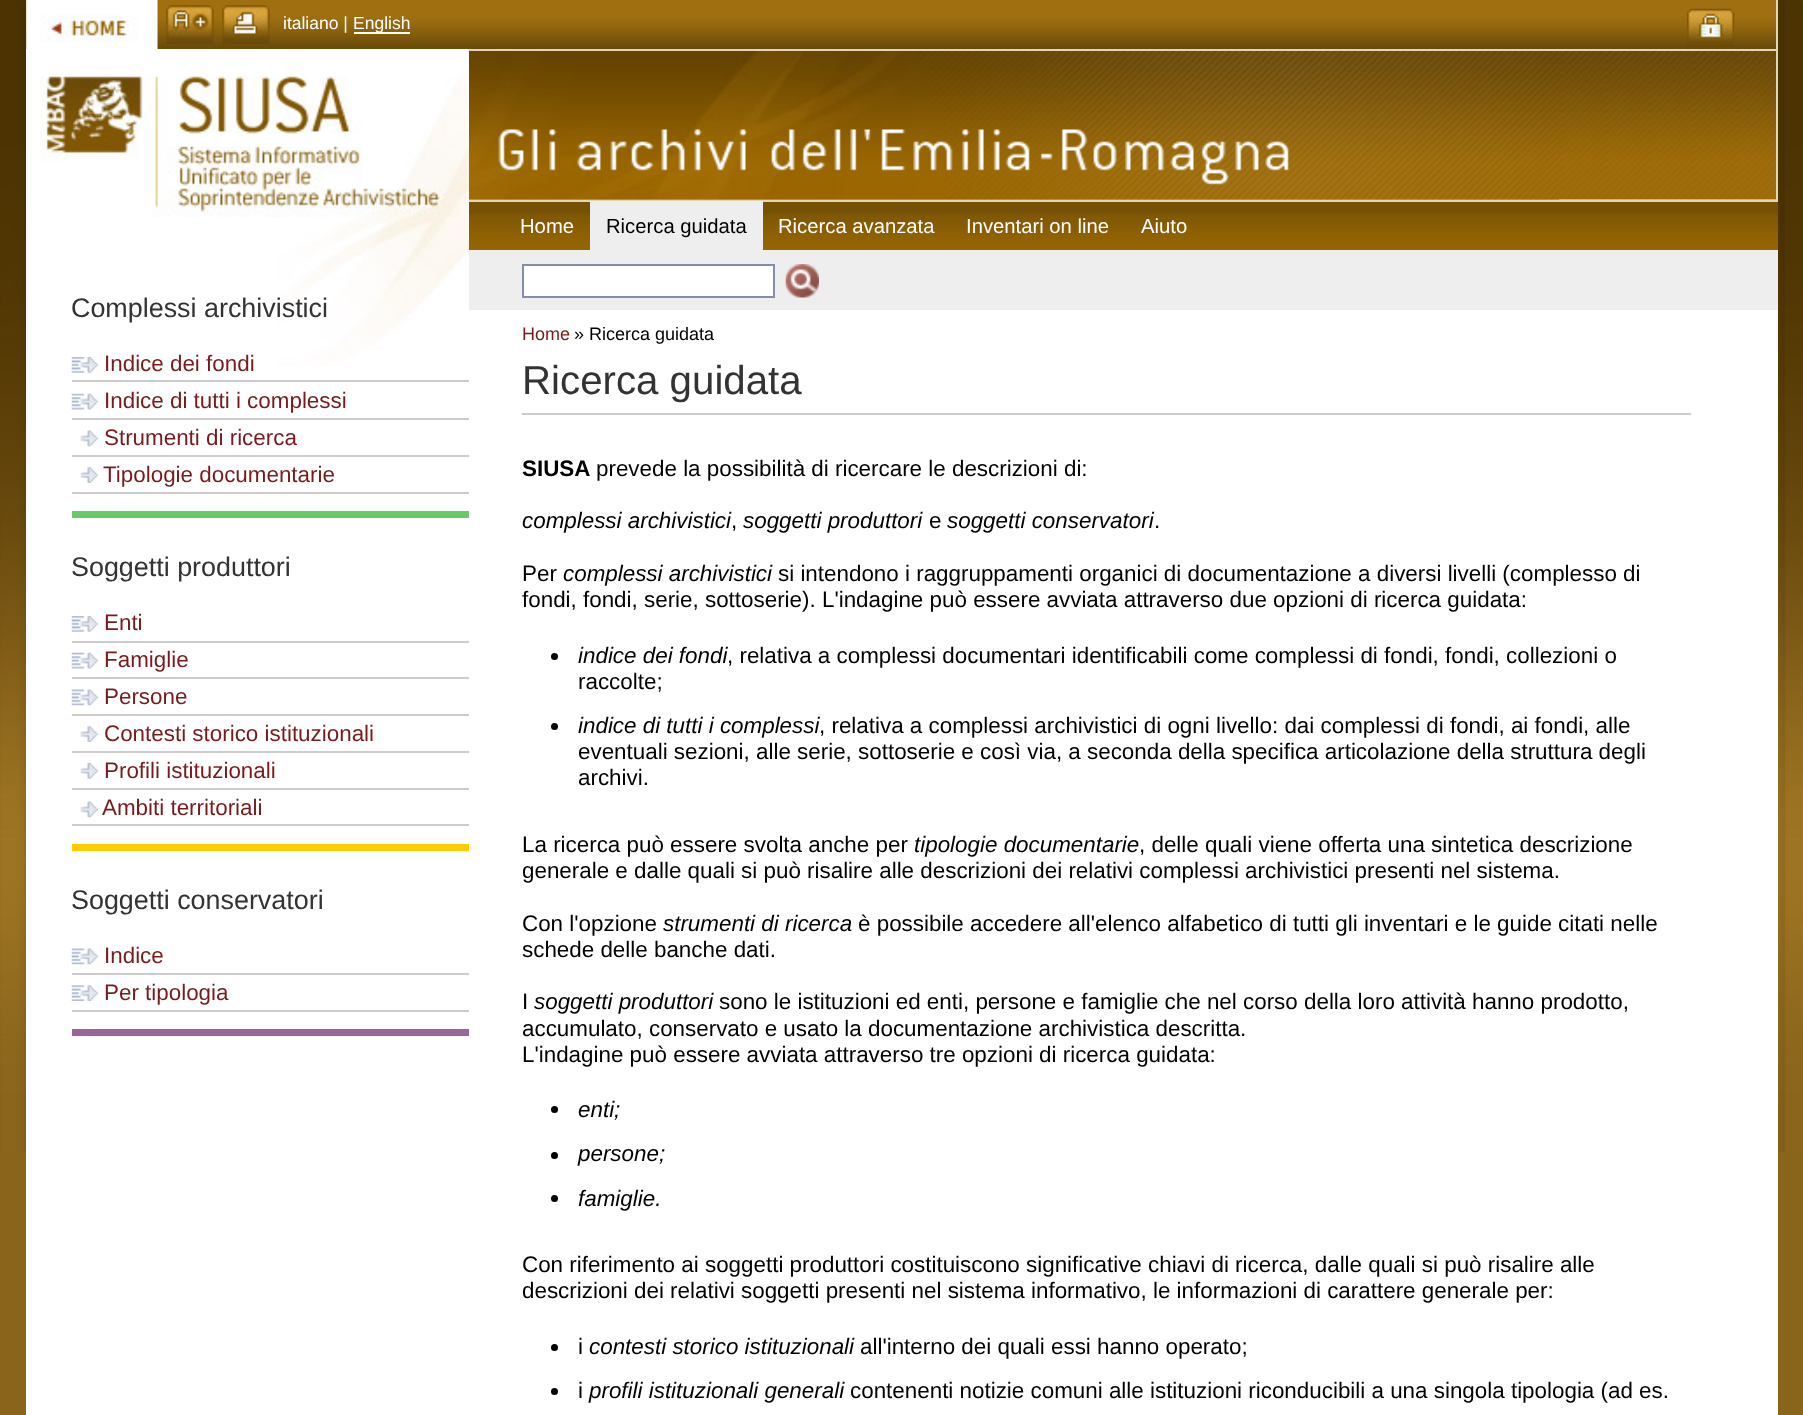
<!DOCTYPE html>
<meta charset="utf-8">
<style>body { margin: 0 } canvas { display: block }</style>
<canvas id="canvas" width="1803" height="1415"></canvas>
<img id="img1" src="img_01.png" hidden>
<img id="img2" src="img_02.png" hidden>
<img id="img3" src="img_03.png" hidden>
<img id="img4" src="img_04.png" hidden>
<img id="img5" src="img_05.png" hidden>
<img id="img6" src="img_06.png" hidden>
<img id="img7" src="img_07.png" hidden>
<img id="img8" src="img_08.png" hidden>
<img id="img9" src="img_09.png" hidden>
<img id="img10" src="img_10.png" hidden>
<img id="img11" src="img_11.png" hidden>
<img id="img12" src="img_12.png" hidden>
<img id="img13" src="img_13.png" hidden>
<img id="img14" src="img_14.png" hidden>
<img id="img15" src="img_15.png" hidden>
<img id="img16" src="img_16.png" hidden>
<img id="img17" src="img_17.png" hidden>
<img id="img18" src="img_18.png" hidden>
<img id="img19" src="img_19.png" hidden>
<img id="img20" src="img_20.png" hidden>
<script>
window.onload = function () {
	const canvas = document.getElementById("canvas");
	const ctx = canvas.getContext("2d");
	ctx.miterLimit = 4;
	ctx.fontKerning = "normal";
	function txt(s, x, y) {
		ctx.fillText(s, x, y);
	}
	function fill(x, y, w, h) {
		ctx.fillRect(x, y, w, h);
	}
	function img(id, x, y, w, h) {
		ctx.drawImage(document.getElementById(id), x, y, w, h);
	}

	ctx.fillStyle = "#89641B";
	fill(0, 0, 1803, 1415);
	img("img1", 0, 0, 1803, 1152);
	ctx.fillStyle = "#FFFFFF";
	fill(26, 0, 1752, 1415);
	img("img2", 26, 0, 1750, 49);
	ctx.fillStyle = "#E3D5B8";
	fill(1776, 0, 2, 49);
	img("img3", 26, 0, 132, 49);
	img("img4", 166, 5, 48, 39);
	img("img5", 222, 5, 48, 39);
	ctx.fillStyle = "#FFFFFF";
	fill(354, 32, 56, 2);
	img("img6", 1687, 8, 48, 39);
	img("img7", 40, 68, 429, 184);
	img("img8", 278, 252, 188, 114);
	ctx.fillStyle = "#66CC66";
	fill(72, 511, 397, 7);
	ctx.fillStyle = "#CCCCCC";
	fill(72, 380, 397, 2);
	img("img9", 71, 357, 27, 16);
	fill(72, 418, 397, 2);
	img("img10", 71, 393, 27, 17);
	fill(72, 455, 397, 2);
	img("img11", 80, 430, 18, 17);
	fill(72, 492, 397, 2);
	img("img12", 80, 467, 18, 16);
	ctx.fillStyle = "#FFCC00";
	fill(72, 844, 397, 7);
	ctx.fillStyle = "#CCCCCC";
	fill(72, 641, 397, 2);
	img("img9", 71, 616, 27, 16);
	fill(72, 677, 397, 2);
	img("img10", 71, 652, 27, 17);
	fill(72, 714, 397, 2);
	img("img13", 71, 689, 27, 17);
	fill(72, 751, 397, 2);
	img("img12", 80, 726, 18, 16);
	fill(72, 788, 397, 2);
	img("img14", 80, 763, 18, 16);
	fill(72, 824, 397, 2);
	img("img11", 80, 801, 18, 17);
	ctx.fillStyle = "#996699";
	fill(72, 1029, 397, 7);
	ctx.fillStyle = "#CCCCCC";
	fill(72, 973, 397, 2);
	img("img13", 71, 948, 27, 17);
	fill(72, 1010, 397, 2);
	img("img15", 71, 985, 27, 16);
	img("img16", 469, 51, 1307, 149);
	img("img17", 469, 51, 1091, 149);
	ctx.fillStyle = "#E3D5B8";
	fill(469, 49, 1309, 2);
	fill(1776, 49, 2, 151);
	img("img18", 498, 129, 791, 56);
	ctx.fillStyle = "#775103";
	fill(469, 202, 1309, 11);
	img("img19", 469, 213, 1309, 37);
	ctx.fillStyle = "#E3D5B8";
	fill(469, 200, 1309, 2);
	ctx.fillStyle = "#EEEEEE";
	fill(590, 201, 173, 49);
	fill(469, 250, 1309, 60);
	ctx.fillStyle = "#FFFFFF";
	ctx.beginPath();
	ctx.rect(523, 265, 251, 32);
	ctx.fill();
	ctx.strokeStyle = "#828EA7";
	ctx.lineWidth = 2;
	ctx.stroke();
	img("img20", 785, 264, 34, 34);
	ctx.fillStyle = "#CCCCCC";
	fill(522, 413, 1169, 2);
	ctx.fillStyle = "#000000";
	ctx.beginPath();
	ctx.arc(554.5, 656.5, 3.5, 0, Math.PI * 2);
	ctx.fill();
	ctx.beginPath();
	ctx.arc(554.5, 726.5, 3.5, 0, Math.PI * 2);
	ctx.fill();
	ctx.beginPath();
	ctx.arc(554.5, 1109.5, 3.5, 0, Math.PI * 2);
	ctx.fill();
	ctx.beginPath();
	ctx.arc(554.5, 1155.5, 3.5, 0, Math.PI * 2);
	ctx.fill();
	ctx.beginPath();
	ctx.arc(554.5, 1198.5, 3.5, 0, Math.PI * 2);
	ctx.fill();
	ctx.beginPath();
	ctx.arc(554.5, 1347.5, 3.5, 0, Math.PI * 2);
	ctx.fill();
	ctx.beginPath();
	ctx.arc(554.5, 1391.5, 3.5, 0, Math.PI * 2);
	ctx.fill();
	ctx.font = "17.5px Liberation Sans";
	ctx.fillStyle = "#FFFFFF";
	txt("italiano |", 283, 29);
	txt("English", 353, 29);
	ctx.font = "26.9px Liberation Sans";
	ctx.fillStyle = "#333333";
	txt("Complessi archivistici", 71, 317);
	ctx.font = "22.4px Liberation Sans";
	ctx.fillStyle = "#791B1D";
	txt("Indice dei fondi", 104, 371);
	txt("Indice di tutti i complessi", 104, 408);
	txt("Strumenti di ricerca", 104, 445);
	txt("Tipologie documentarie", 103, 482);
	ctx.font = "26.9px Liberation Sans";
	ctx.fillStyle = "#333333";
	txt("Soggetti produttori", 71, 576);
	ctx.font = "22.4px Liberation Sans";
	ctx.fillStyle = "#791B1D";
	txt("Enti", 104, 630);
	txt("Famiglie", 104, 667);
	txt("Persone", 104, 704);
	txt("Contesti storico istituzionali", 104, 741);
	txt("Profili istituzionali", 104, 778);
	txt("Ambiti territoriali", 102, 815);
	ctx.font = "26.9px Liberation Sans";
	ctx.fillStyle = "#333333";
	txt("Soggetti conservatori", 71, 909);
	ctx.font = "22.4px Liberation Sans";
	ctx.fillStyle = "#791B1D";
	txt("Indice", 104, 963);
	txt("Per tipologia", 104, 1000);
	ctx.font = "20.25px Liberation Sans";
	ctx.fillStyle = "#FFFFFF";
	txt("Home", 520, 233);
	ctx.fillStyle = "#000000";
	txt("Ricerca guidata", 606, 233);
	ctx.fillStyle = "#FFFFFF";
	txt("Ricerca avanzata", 778, 233);
	txt("Inventari on line", 966, 233);
	txt("Aiuto", 1141, 233);
	ctx.font = "18px Liberation Sans";
	ctx.fillStyle = "#791B1D";
	txt("Home", 522, 340);
	ctx.fillStyle = "#000000";
	txt("» Ricerca guidata", 574, 340);
	ctx.font = "40.25px Liberation Sans";
	ctx.fillStyle = "#333333";
	txt("Ricerca guidata", 522, 394);
	ctx.font = "bold 22.4px Liberation Sans";
	ctx.fillStyle = "#000000";
	txt("SIUSA", 522, 476);
	ctx.font = "22.4px Liberation Sans";
	txt("prevede la possibilità di ricercare le descrizioni di:", 596, 476);
	ctx.font = "italic 22.4px Liberation Sans";
	txt("complessi archivistici", 522, 528);
	ctx.font = "22.4px Liberation Sans";
	txt(",", 731, 528);
	ctx.font = "italic 22.4px Liberation Sans";
	txt("soggetti produttori", 743, 528);
	ctx.font = "22.4px Liberation Sans";
	txt("e", 929, 528);
	ctx.font = "italic 22.4px Liberation Sans";
	txt("soggetti conservatori", 947, 528);
	ctx.font = "22.4px Liberation Sans";
	txt(".", 1154, 528);
	txt("Per", 522, 581);
	ctx.font = "italic 22.4px Liberation Sans";
	txt("complessi archivistici", 563, 581);
	ctx.font = "22.4px Liberation Sans";
	txt("si intendono i raggruppamenti organici di documentazione a diversi livelli (complesso di", 778, 581);
	txt("fondi, fondi, serie, sottoserie). L'indagine può essere avviata attraverso due opzioni di ricerca guidata:", 522, 607);
	ctx.font = "italic 22.4px Liberation Sans";
	txt("indice dei fondi", 578, 663);
	ctx.font = "22.4px Liberation Sans";
	txt(", relativa a complessi documentari identificabili come complessi di fondi, fondi, collezioni o", 727, 663);
	txt("raccolte;", 578, 689);
	ctx.font = "italic 22.4px Liberation Sans";
	txt("indice di tutti i complessi", 578, 733);
	ctx.font = "22.4px Liberation Sans";
	txt(", relativa a complessi archivistici di ogni livello: dai complessi di fondi, ai fondi, alle", 819, 733);
	txt("eventuali sezioni, alle serie, sottoserie e così via, a seconda della specifica articolazione della struttura degli", 578, 759);
	txt("archivi.", 578, 785);
	txt("La ricerca può essere svolta anche per", 522, 852);
	ctx.font = "italic 22.4px Liberation Sans";
	txt("tipologie documentarie", 914, 852);
	ctx.font = "22.4px Liberation Sans";
	txt(", delle quali viene offerta una sintetica descrizione", 1139, 852);
	txt("generale e dalle quali si può risalire alle descrizioni dei relativi complessi archivistici presenti nel sistema.", 522, 878);
	txt("Con l'opzione", 522, 931);
	ctx.font = "italic 22.4px Liberation Sans";
	txt("strumenti di ricerca", 663, 931);
	ctx.font = "22.4px Liberation Sans";
	txt("è possibile accedere all'elenco alfabetico di tutti gli inventari e le guide citati nelle", 858, 931);
	txt("schede delle banche dati.", 522, 957);
	txt("I", 522, 1009);
	ctx.font = "italic 22.4px Liberation Sans";
	txt("soggetti produttori", 534, 1009);
	ctx.font = "22.4px Liberation Sans";
	txt("sono le istituzioni ed enti, persone e famiglie che nel corso della loro attività hanno prodotto,", 719, 1009);
	txt("accumulato, conservato e usato la documentazione archivistica descritta.", 522, 1036);
	txt("L'indagine può essere avviata attraverso tre opzioni di ricerca guidata:", 522, 1062);
	ctx.font = "italic 22.4px Liberation Sans";
	txt("enti;", 578, 1117);
	txt("persone;", 578, 1161);
	txt("famiglie.", 578, 1206);
	ctx.font = "22.4px Liberation Sans";
	txt("Con riferimento ai soggetti produttori costituiscono significative chiavi di ricerca, dalle quali si può risalire alle", 522, 1272);
	txt("descrizioni dei relativi soggetti presenti nel sistema informativo, le informazioni di carattere generale per:", 522, 1298);
	txt("i", 578, 1354);
	ctx.font = "italic 22.4px Liberation Sans";
	txt("contesti storico istituzionali", 589, 1354);
	ctx.font = "22.4px Liberation Sans";
	txt("all'interno dei quali essi hanno operato;", 860, 1354);
	txt("i", 578, 1398);
	ctx.font = "italic 22.4px Liberation Sans";
	txt("profili istituzionali generali", 589, 1398);
	ctx.font = "22.4px Liberation Sans";
	txt("contenenti notizie comuni alle istituzioni riconducibili a una singola tipologia (ad es.", 850, 1398);
};
</script>
